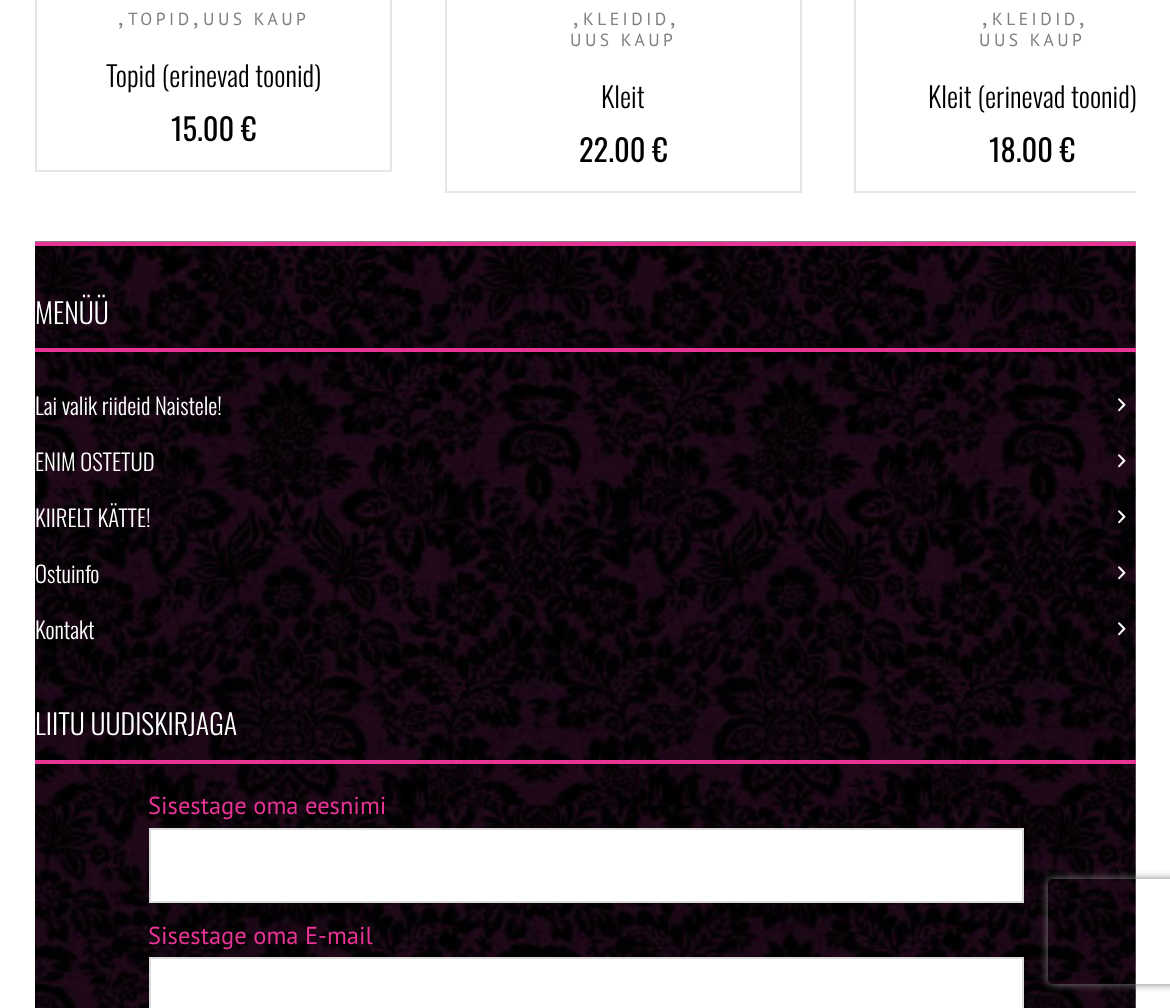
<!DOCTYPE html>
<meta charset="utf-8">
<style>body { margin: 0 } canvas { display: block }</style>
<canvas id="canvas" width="1170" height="1008"></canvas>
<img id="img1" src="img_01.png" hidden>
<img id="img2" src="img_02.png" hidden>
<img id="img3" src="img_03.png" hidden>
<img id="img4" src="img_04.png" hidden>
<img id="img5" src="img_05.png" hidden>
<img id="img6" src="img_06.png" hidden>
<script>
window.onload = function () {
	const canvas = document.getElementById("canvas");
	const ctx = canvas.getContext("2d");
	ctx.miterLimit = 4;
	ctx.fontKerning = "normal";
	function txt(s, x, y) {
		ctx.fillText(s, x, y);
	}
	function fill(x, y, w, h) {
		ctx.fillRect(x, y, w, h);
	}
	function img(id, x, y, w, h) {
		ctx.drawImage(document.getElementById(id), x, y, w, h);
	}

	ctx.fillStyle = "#FFFFFF";
	fill(0, 0, 1170, 1008);
	ctx.strokeStyle = "#E6E6E6";
	ctx.lineWidth = 2;
	ctx.strokeRect(36, -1, 355, 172);
	ctx.strokeRect(446, -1, 355, 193);
	ctx.save();
	ctx.beginPath();
	ctx.rect(35, 0, 1101, 242);
	ctx.clip();
	ctx.strokeRect(855, -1, 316, 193);
	ctx.restore();
	img("img1", 35, 241, 1101, 767);
	ctx.fillStyle = "#E83495";
	fill(35, 242, 1101, 4);
	fill(35, 348, 1101, 4);
	ctx.beginPath();
	ctx.moveTo(35, 433);
	ctx.lineTo(1136, 433);
	ctx.strokeStyle = "rgba(0, 0, 0, 0.2)";
	ctx.lineWidth = 1.8;
	ctx.setLineDash([1.75, 1.75]);
	ctx.stroke();
	img("img2", 1118, 398, 8, 14);
	ctx.beginPath();
	ctx.moveTo(35, 489);
	ctx.lineTo(1136, 489);
	ctx.stroke();
	img("img3", 1118, 454, 8, 14);
	ctx.beginPath();
	ctx.moveTo(35, 545);
	ctx.lineTo(1136, 545);
	ctx.stroke();
	img("img4", 1118, 510, 8, 14);
	ctx.beginPath();
	ctx.moveTo(35, 601);
	ctx.lineTo(1136, 601);
	ctx.stroke();
	img("img5", 1118, 566, 8, 14);
	img("img6", 1118, 622, 8, 14);
	fill(35, 760, 1101, 4);
	ctx.fillStyle = "#FFFFFF";
	ctx.beginPath();
	ctx.rect(150, 829, 873, 73);
	ctx.fill();
	ctx.strokeStyle = "#DDDDDD";
	ctx.lineWidth = 2;
	ctx.setLineDash([]);
	ctx.stroke();
	ctx.beginPath();
	ctx.rect(150, 958, 873, 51);
	ctx.fill();
	ctx.stroke();
	ctx.save();
	ctx.beginPath();
	ctx.moveTo(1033, 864);
	ctx.lineTo(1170, 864);
	ctx.lineTo(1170, 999);
	ctx.lineTo(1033, 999);
	ctx.closePath();
	ctx.moveTo(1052, 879);
	ctx.lineTo(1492, 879);
	ctx.bezierCurveTo(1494, 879, 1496, 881, 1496, 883);
	ctx.lineTo(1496, 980);
	ctx.bezierCurveTo(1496, 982, 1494, 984, 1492, 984);
	ctx.lineTo(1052, 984);
	ctx.bezierCurveTo(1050, 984, 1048, 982, 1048, 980);
	ctx.lineTo(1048, 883);
	ctx.bezierCurveTo(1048, 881, 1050, 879, 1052, 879);
	ctx.closePath();
	ctx.clip("evenodd");
	ctx.fillStyle = "#808080";
	ctx.filter = "blur(4.5px)";
	ctx.beginPath();
	ctx.roundRect(1048, 879, 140, 105, 4);
	ctx.fill();
	ctx.filter = "none";
	ctx.restore();
	ctx.font = "24.5px PT Sans";
	ctx.fillStyle = "#808080";
	txt(",", 118, 25);
	ctx.letterSpacing = "3.5px";
	ctx.font = "17.5px PT Sans";
	txt("TOPID", 128, 25);
	ctx.letterSpacing = "0px";
	ctx.font = "24.5px PT Sans";
	txt(",", 193, 25);
	ctx.letterSpacing = "3.5px";
	ctx.font = "17.5px PT Sans";
	txt("UUS KAUP", 203, 25);
	ctx.letterSpacing = "0px";
	ctx.font = "300 28px Oswald";
	ctx.fillStyle = "#000000";
	txt("Topid (erinevad toonid)", 106, 87);
	ctx.font = "30.5px Oswald";
	txt("15.00 €", 171, 141);
	ctx.font = "24.5px PT Sans";
	ctx.fillStyle = "#808080";
	txt(",", 573, 25);
	ctx.letterSpacing = "3.5px";
	ctx.font = "17.5px PT Sans";
	txt("KLEIDID", 583, 25);
	ctx.letterSpacing = "0px";
	ctx.font = "24.5px PT Sans";
	txt(",", 670, 25);
	ctx.letterSpacing = "3.5px";
	ctx.font = "17.5px PT Sans";
	txt("UUS KAUP", 570, 46);
	ctx.letterSpacing = "0px";
	ctx.font = "300 28px Oswald";
	ctx.fillStyle = "#000000";
	txt("Kleit", 601, 108);
	ctx.font = "30.5px Oswald";
	txt("22.00 €", 579, 162);
	ctx.font = "24.5px PT Sans";
	ctx.fillStyle = "#808080";
	txt(",", 982, 25);
	ctx.letterSpacing = "3.5px";
	ctx.font = "17.5px PT Sans";
	txt("KLEIDID", 992, 25);
	ctx.letterSpacing = "0px";
	ctx.font = "24.5px PT Sans";
	txt(",", 1079, 25);
	ctx.letterSpacing = "3.5px";
	ctx.font = "17.5px PT Sans";
	txt("UUS KAUP", 979, 46);
	ctx.letterSpacing = "0px";
	ctx.font = "300 28px Oswald";
	ctx.fillStyle = "#000000";
	txt("Kleit (erinevad toonid)", 928, 108);
	ctx.font = "30.5px Oswald";
	txt("18.00 €", 989, 162);
	ctx.font = "300 28px Oswald";
	ctx.fillStyle = "#FFFFFF";
	txt("MENÜÜ", 35, 324);
	ctx.font = "300 22.75px Oswald";
	txt("Lai valik riideid Naistele!", 35, 415);
	txt("ENIM OSTETUD", 35, 471);
	txt("KIIRELT KÄTTE!", 35, 527);
	txt("Ostuinfo", 35, 583);
	txt("Kontakt", 35, 639);
	ctx.font = "300 28px Oswald";
	txt("LIITU UUDISKIRJAGA", 35, 735);
	ctx.font = "24.5px PT Sans";
	ctx.fillStyle = "#E83495";
	txt("Sisestage oma eesnimi", 148, 814);
	txt("Sisestage oma E-mail", 148, 944);
};
</script>
